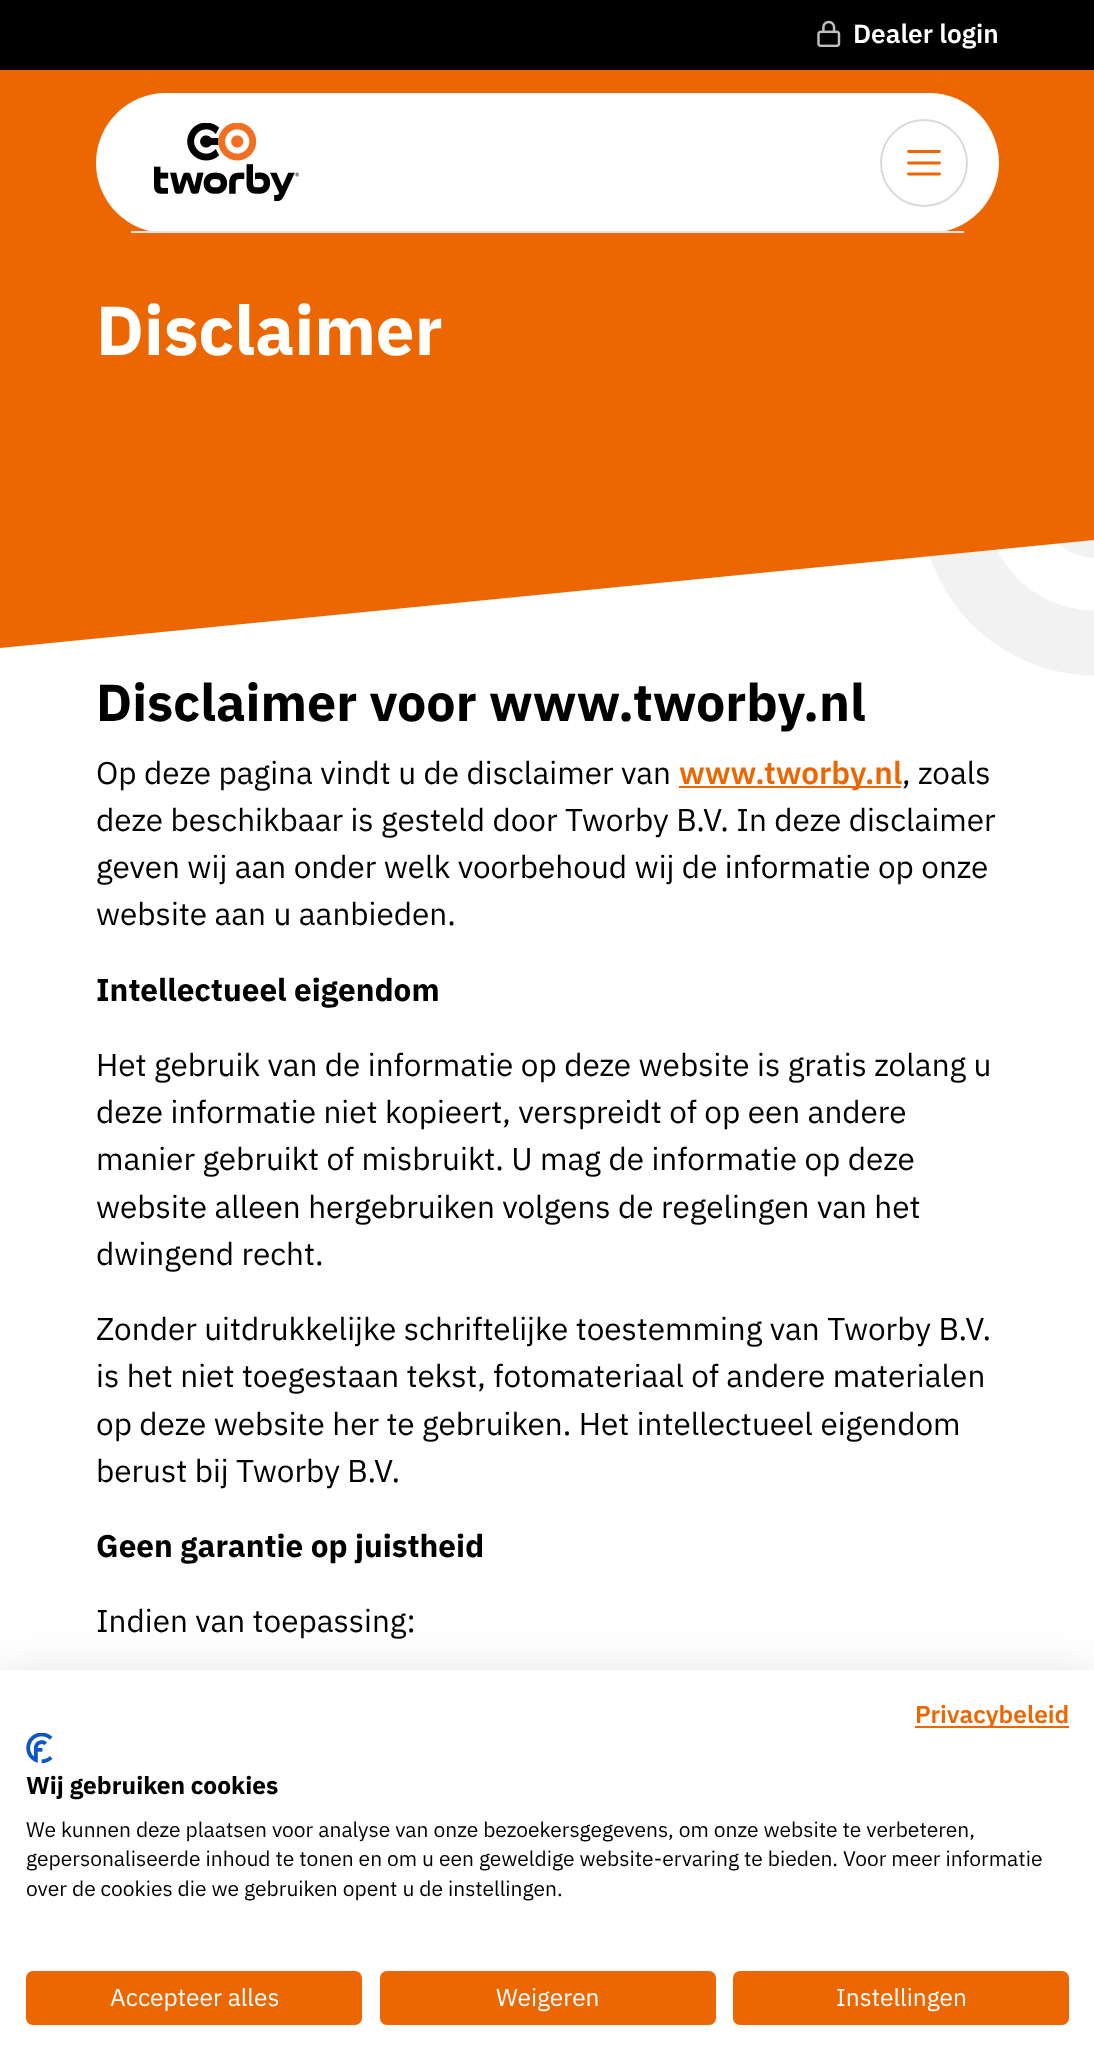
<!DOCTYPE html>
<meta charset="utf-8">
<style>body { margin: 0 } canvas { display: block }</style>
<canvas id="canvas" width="1094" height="2072"></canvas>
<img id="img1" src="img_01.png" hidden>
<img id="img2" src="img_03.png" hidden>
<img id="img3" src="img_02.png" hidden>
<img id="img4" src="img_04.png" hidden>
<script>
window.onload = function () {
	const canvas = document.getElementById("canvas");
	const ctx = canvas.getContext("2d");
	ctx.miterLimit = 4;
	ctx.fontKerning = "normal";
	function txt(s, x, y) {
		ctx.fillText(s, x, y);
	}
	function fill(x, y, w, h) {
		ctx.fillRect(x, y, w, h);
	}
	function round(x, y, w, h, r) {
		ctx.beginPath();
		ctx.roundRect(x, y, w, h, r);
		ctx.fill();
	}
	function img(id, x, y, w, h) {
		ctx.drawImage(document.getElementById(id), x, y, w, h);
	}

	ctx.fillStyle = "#FFFFFF";
	fill(0, 0, 1094, 2072);
	ctx.fillStyle = "#000000";
	fill(0, 0, 1094, 70);
	img("img1", 817, 20, 24, 27);
	img("img2", 929, 539, 165, 137);
	ctx.fillStyle = "#EC6602";
	ctx.beginPath();
	ctx.moveTo(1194, 530);
	ctx.lineTo(-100, 658);
	ctx.lineTo(-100, 70);
	ctx.lineTo(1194, 70);
	ctx.bezierCurveTo(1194, 70, 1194, 223, 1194, 530);
	ctx.closePath();
	ctx.fill("evenodd");
	ctx.fillStyle = "#FFFFFF";
	round(96, 93, 903, 140, 70);
	ctx.fillStyle = "#E4E4E4";
	fill(131, 231, 833, 2);
	img("img3", 154, 123, 145, 78);
	ctx.beginPath();
	ctx.arc(924, 163, 43, 0, Math.PI * 2);
	ctx.strokeStyle = "#D9D9D9";
	ctx.lineWidth = 2;
	ctx.stroke();
	ctx.beginPath();
	ctx.moveTo(908.5, 151.5);
	ctx.lineTo(939.5, 151.5);
	ctx.moveTo(908.5, 163);
	ctx.lineTo(939.5, 163);
	ctx.moveTo(908.5, 174);
	ctx.lineTo(939.5, 174);
	ctx.strokeStyle = "#EC6602";
	ctx.lineWidth = 2.8;
	ctx.lineCap = "round";
	ctx.stroke();
	ctx.fillStyle = "#EC6602";
	fill(679, 786, 222, 2);
	ctx.fillStyle = "rgba(0, 0, 0, 0.1)";
	ctx.filter = "blur(21px)";
	ctx.beginPath();
	ctx.rect(0, 1670, 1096, 402);
	ctx.fill();
	ctx.filter = "none";
	ctx.fillStyle = "#FFFFFF";
	fill(0, 1670, 1094, 402);
	ctx.fillStyle = "#EC6602";
	fill(915, 1726, 154, 2);
	img("img4", 26, 1733, 27, 31);
	ctx.beginPath();
	ctx.roundRect(27, 1972, 334, 52, 6);
	ctx.fill();
	ctx.lineWidth = 2;
	ctx.stroke();
	ctx.beginPath();
	ctx.roundRect(381, 1972, 334, 52, 6);
	ctx.fill();
	ctx.stroke();
	ctx.beginPath();
	ctx.roundRect(734, 1972, 334, 52, 6);
	ctx.fill();
	ctx.stroke();
	ctx.font = "600 26.25px IBM Plex Sans";
	ctx.fillStyle = "#FFFFFF";
	txt("Dealer login", 853, 43);
	ctx.font = "bold 69px IBM Plex Sans";
	txt("Disclaimer", 96, 355);
	ctx.font = "bold 52px IBM Plex Sans";
	ctx.fillStyle = "#000000";
	txt("Disclaimer voor www.tworby.nl", 96, 721);
	ctx.font = "31.5px IBM Plex Sans";
	txt("Op deze pagina vindt u de disclaimer van", 96, 784);
	ctx.font = "600 31.5px IBM Plex Sans";
	ctx.fillStyle = "#EC6602";
	txt("www.tworby.nl", 679, 784);
	ctx.font = "31.5px IBM Plex Sans";
	ctx.fillStyle = "#000000";
	txt(", zoals", 902, 784);
	txt("deze beschikbaar is gesteld door Tworby B.V. In deze disclaimer", 96, 831);
	txt("geven wij aan onder welk voorbehoud wij de informatie op onze", 96, 878);
	txt("website aan u aanbieden.", 96, 925);
	ctx.font = "bold 31.5px IBM Plex Sans";
	txt("Intellectueel eigendom", 96, 1001);
	ctx.font = "31.5px IBM Plex Sans";
	txt("Het gebruik van de informatie op deze website is gratis zolang u", 96, 1076);
	txt("deze informatie niet kopieert, verspreidt of op een andere", 96, 1123);
	txt("manier gebruikt of misbruikt. U mag de informatie op deze", 96, 1170);
	txt("website alleen hergebruiken volgens de regelingen van het", 96, 1218);
	txt("dwingend recht.", 96, 1265);
	txt("Zonder uitdrukkelijke schriftelijke toestemming van Tworby B.V.", 96, 1340);
	txt("is het niet toegestaan tekst, fotomateriaal of andere materialen", 96, 1387);
	txt("op deze website her te gebruiken. Het intellectueel eigendom", 96, 1435);
	txt("berust bij Tworby B.V.", 96, 1482);
	ctx.font = "bold 31.5px IBM Plex Sans";
	txt("Geen garantie op juistheid", 96, 1557);
	ctx.font = "31.5px IBM Plex Sans";
	txt("Indien van toepassing:", 96, 1632);
	ctx.font = "600 24.5px IBM Plex Sans";
	ctx.fillStyle = "#EC6602";
	txt("Privacybeleid", 915, 1723);
	ctx.font = "bold 24.5px IBM Plex Sans";
	ctx.fillStyle = "#000000";
	txt("Wij gebruiken cookies", 26, 1794);
	ctx.font = "21px IBM Plex Sans";
	txt("We kunnen deze plaatsen voor analyse van onze bezoekersgegevens, om onze website te verbeteren,", 26, 1837);
	txt("gepersonaliseerde inhoud te tonen en om u een geweldige website-ervaring te bieden. Voor meer informatie", 26, 1866);
	txt("over de cookies die we gebruiken opent u de instellingen.", 26, 1896);
	ctx.font = "24.5px IBM Plex Sans";
	ctx.fillStyle = "#FFFFFF";
	txt("Accepteer alles", 110, 2006);
	txt("Weigeren", 496, 2006);
	txt("Instellingen", 836, 2006);
};
</script>
